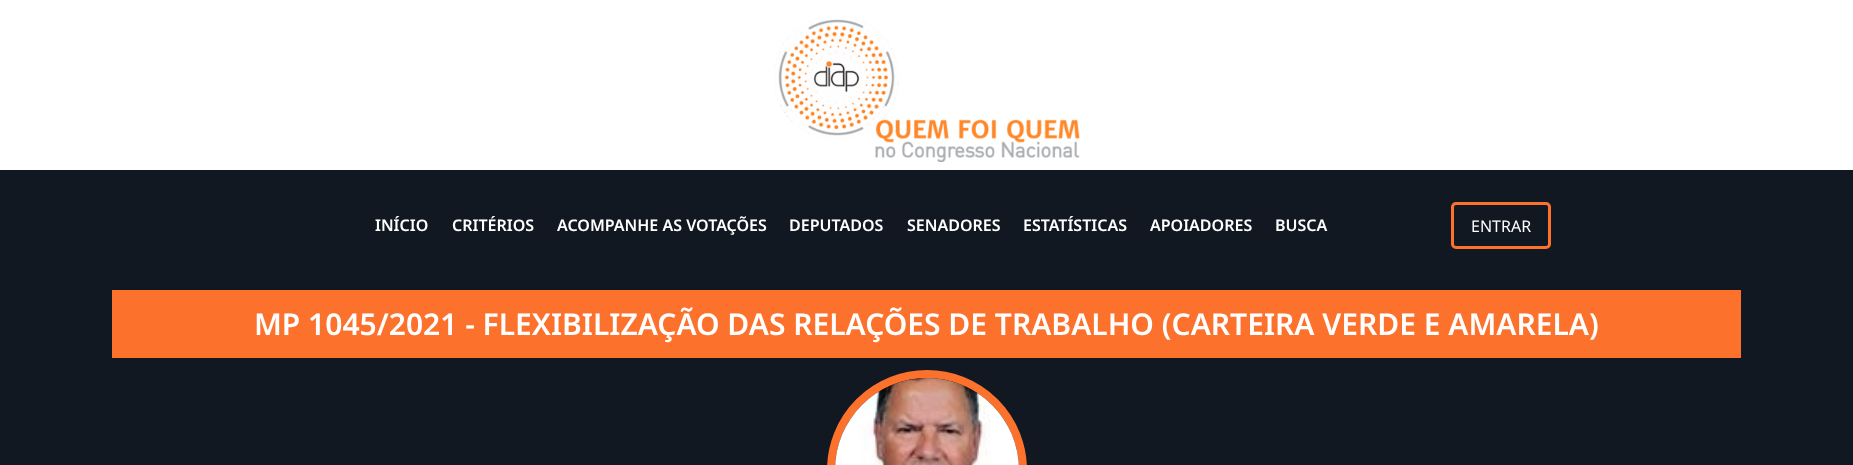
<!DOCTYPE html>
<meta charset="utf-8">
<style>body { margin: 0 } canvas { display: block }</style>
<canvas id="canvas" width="1853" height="465"></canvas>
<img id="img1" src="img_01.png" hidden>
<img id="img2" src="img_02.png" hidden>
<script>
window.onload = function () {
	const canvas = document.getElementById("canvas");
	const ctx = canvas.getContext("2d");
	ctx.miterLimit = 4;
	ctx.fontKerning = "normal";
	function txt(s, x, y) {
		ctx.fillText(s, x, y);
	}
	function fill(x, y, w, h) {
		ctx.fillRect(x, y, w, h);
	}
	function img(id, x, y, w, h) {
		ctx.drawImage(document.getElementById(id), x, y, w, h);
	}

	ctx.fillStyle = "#121821";
	fill(0, 0, 1853, 465);
	ctx.fillStyle = "#FFFFFF";
	fill(0, 0, 1853, 170);
	img("img1", 774, 15, 306, 147);
	ctx.beginPath();
	ctx.roundRect(1452.5, 203.5, 97, 44, 3.5);
	ctx.strokeStyle = "#FC712C";
	ctx.lineWidth = 3;
	ctx.stroke();
	ctx.fillStyle = "#FC712C";
	fill(112, 290, 1629, 68);
	ctx.beginPath();
	ctx.arc(927, 470, 96, 0, Math.PI * 2);
	ctx.lineWidth = 8;
	ctx.stroke();
	img("img2", 835, 378, 184, 87);
	ctx.font = "600 16px Noto Sans";
	ctx.fillStyle = "#FFFFFF";
	txt("INÍCIO", 375, 231);
	txt("CRITÉRIOS", 452, 231);
	txt("ACOMPANHE AS VOTAÇÕES", 557, 231);
	txt("DEPUTADOS", 789, 231);
	txt("SENADORES", 907, 231);
	txt("ESTATÍSTICAS", 1023, 231);
	txt("APOIADORES", 1150, 231);
	txt("BUSCA", 1275, 231);
	ctx.font = "16px Noto Sans";
	txt("ENTRAR", 1471, 232);
	ctx.font = "600 30px Noto Sans";
	txt("MP 1045/2021 - FLEXIBILIZAÇÃO DAS RELAÇÕES DE TRABALHO (CARTEIRA VERDE E AMARELA)", 254, 335);
};
</script>
